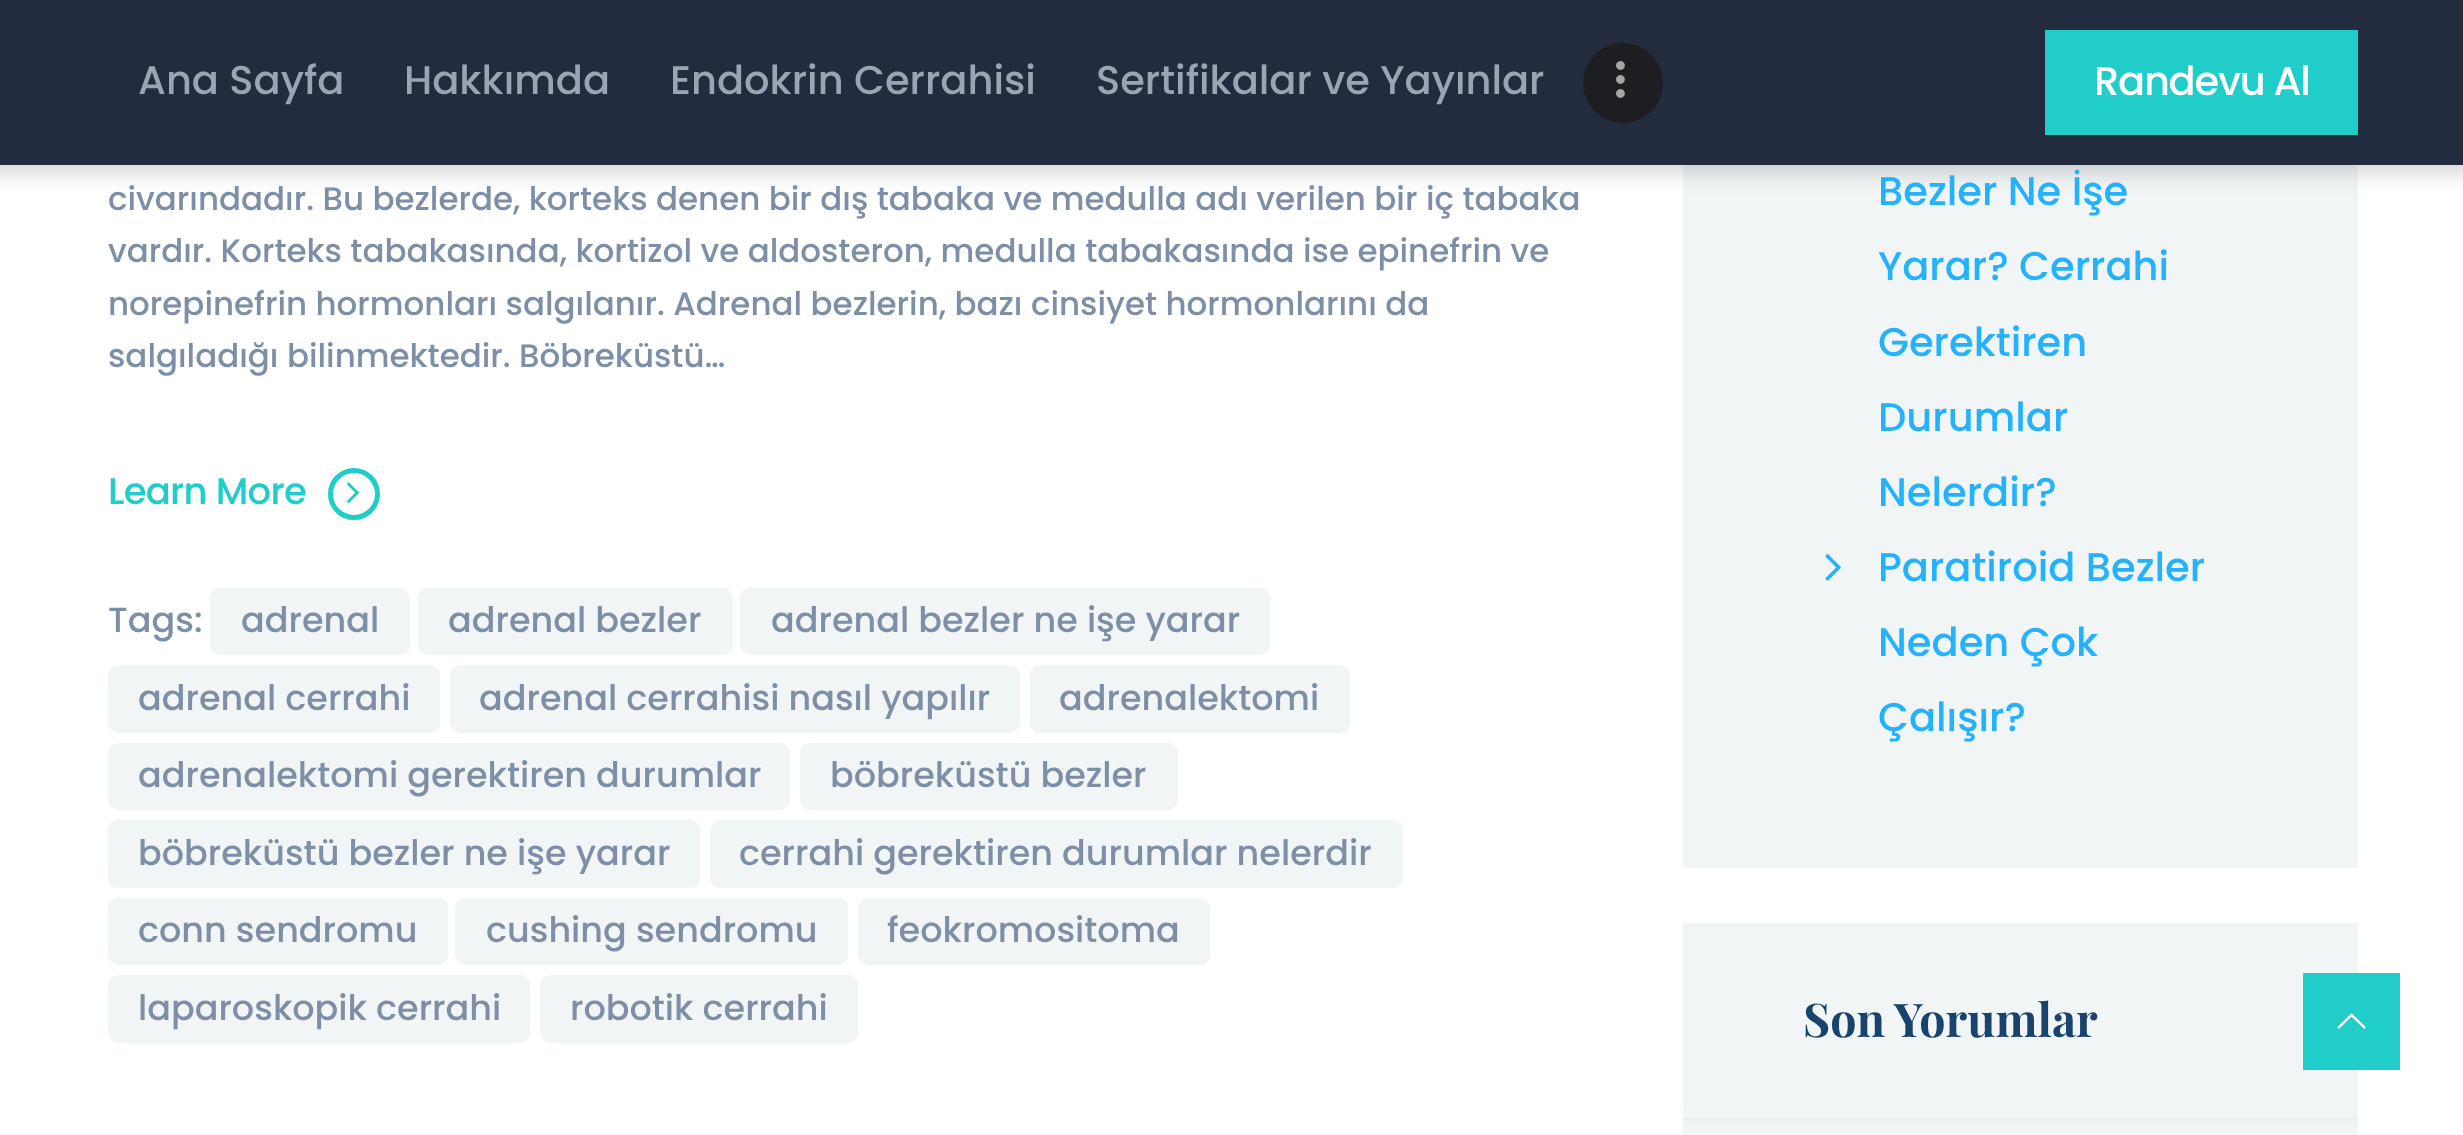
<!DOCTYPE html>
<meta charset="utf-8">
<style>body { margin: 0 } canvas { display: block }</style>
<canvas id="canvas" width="2463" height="1135"></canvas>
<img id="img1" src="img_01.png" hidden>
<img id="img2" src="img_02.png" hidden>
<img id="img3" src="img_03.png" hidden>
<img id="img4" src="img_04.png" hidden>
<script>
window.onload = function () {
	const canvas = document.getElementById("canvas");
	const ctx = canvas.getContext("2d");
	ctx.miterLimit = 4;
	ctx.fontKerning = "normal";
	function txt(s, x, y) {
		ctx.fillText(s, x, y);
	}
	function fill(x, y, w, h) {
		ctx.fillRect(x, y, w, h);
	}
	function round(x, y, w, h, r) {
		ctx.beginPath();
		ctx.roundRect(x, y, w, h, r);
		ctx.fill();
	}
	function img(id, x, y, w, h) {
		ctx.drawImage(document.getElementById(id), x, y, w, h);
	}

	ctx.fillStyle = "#FFFFFF";
	fill(0, 0, 2463, 1135);
	ctx.fillStyle = "#F2F5F5";
	fill(1683, 165, 675, 703);
	ctx.fillStyle = "rgba(0, 0, 0, 0.2)";
	ctx.filter = "blur(12.5px)";
	ctx.beginPath();
	ctx.rect(-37, 5, 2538, 165);
	ctx.fill();
	ctx.filter = "none";
	ctx.fillStyle = "#232C3E";
	fill(0, 0, 2463, 165);
	ctx.fillStyle = "#1E1D22";
	ctx.beginPath();
	ctx.arc(1623, 83, 40, 0, Math.PI * 2);
	ctx.fill();
	img("img1", 1616, 61, 9, 37);
	ctx.fillStyle = "#21CDC8";
	fill(2045, 30, 313, 105);
	ctx.beginPath();
	ctx.arc(354, 494, 23.5, 0, Math.PI * 2);
	ctx.strokeStyle = "#21CDC8";
	ctx.lineWidth = 5;
	ctx.stroke();
	img("img2", 346, 482, 13, 22);
	ctx.fillStyle = "#F2F5F5";
	round(210, 588, 200, 67, 10);
	round(418, 588, 315, 67, 10);
	round(740, 588, 530, 67, 10);
	round(108, 665, 332, 68, 10);
	round(450, 665, 570, 68, 10);
	round(1030, 665, 320, 68, 10);
	round(108, 743, 682, 67, 10);
	round(800, 743, 378, 67, 10);
	round(108, 820, 592, 68, 10);
	round(710, 820, 693, 68, 10);
	round(108, 898, 340, 67, 10);
	round(455, 898, 393, 67, 10);
	round(858, 898, 352, 67, 10);
	round(108, 975, 422, 68, 10);
	round(540, 975, 318, 68, 10);
	img("img3", 1825, 554, 16, 27);
	fill(1683, 923, 675, 212);
	ctx.fillStyle = "#EBEDF1";
	fill(1683, 1118, 675, 3);
	ctx.fillStyle = "#21CDC8";
	fill(2303, 973, 97, 97);
	img("img4", 2337, 1013, 29, 16);
	ctx.font = "500 40px Poppins";
	ctx.fillStyle = "#9BA5B1";
	txt("Ana Sayfa", 138, 94);
	txt("Hakkımda", 404, 94);
	txt("Endokrin Cerrahisi", 670, 94);
	txt("Sertifikalar ve Yayınlar", 1096, 94);
	ctx.letterSpacing = "-1.25px";
	ctx.fillStyle = "#FFFFFF";
	txt("Randevu Al", 2094, 95);
	ctx.letterSpacing = "0px";
	ctx.font = "500 32.5px Poppins";
	ctx.fillStyle = "#7C8FA7";
	txt("civarındadır. Bu bezlerde, korteks denen bir dış tabaka ve medulla adı verilen bir iç tabaka", 108, 210);
	txt("vardır. Korteks tabakasında, kortizol ve aldosteron, medulla tabakasında ise epinefrin ve", 108, 262);
	txt("norepinefrin hormonları salgılanır. Adrenal bezlerin, bazı cinsiyet hormonlarını da", 108, 315);
	txt("salgıladığı bilinmektedir. Böbreküstü…", 108, 367);
	ctx.letterSpacing = "-0.75px";
	ctx.font = "500 37px Poppins";
	ctx.fillStyle = "#21CDC8";
	txt("Learn More", 108, 504);
	ctx.letterSpacing = "0px";
	ctx.font = "500 35px Poppins";
	ctx.fillStyle = "#7C8FA7";
	txt("Tags:", 108, 632);
	txt("adrenal", 241, 632);
	txt("adrenal bezler", 448, 632);
	txt("adrenal bezler ne işe yarar", 771, 632);
	txt("adrenal cerrahi", 138, 710);
	txt("adrenal cerrahisi nasıl yapılır", 479, 710);
	txt("adrenalektomi", 1059, 710);
	txt("adrenalektomi gerektiren durumlar", 138, 787);
	txt("böbreküstü bezler", 830, 787);
	txt("böbreküstü bezler ne işe yarar", 138, 865);
	txt("cerrahi gerektiren durumlar nelerdir", 739, 865);
	txt("conn sendromu", 138, 942);
	txt("cushing sendromu", 486, 942);
	txt("feokromositoma", 887, 942);
	txt("laparoskopik cerrahi", 138, 1020);
	txt("robotik cerrahi", 570, 1020);
	ctx.font = "500 40px Poppins";
	ctx.fillStyle = "#25B2FC";
	txt("Bezler Ne İşe", 1878, 205);
	txt("Yarar? Cerrahi", 1878, 280);
	txt("Gerektiren", 1878, 356);
	txt("Durumlar", 1878, 431);
	txt("Nelerdir?", 1878, 506);
	txt("Paratiroid Bezler", 1878, 581);
	txt("Neden Çok", 1878, 656);
	txt("Çalışır?", 1878, 731);
	ctx.font = "bold 46.5px Playfair Display";
	ctx.fillStyle = "#17436D";
	txt("Son Yorumlar", 1803, 1037);
};
</script>
